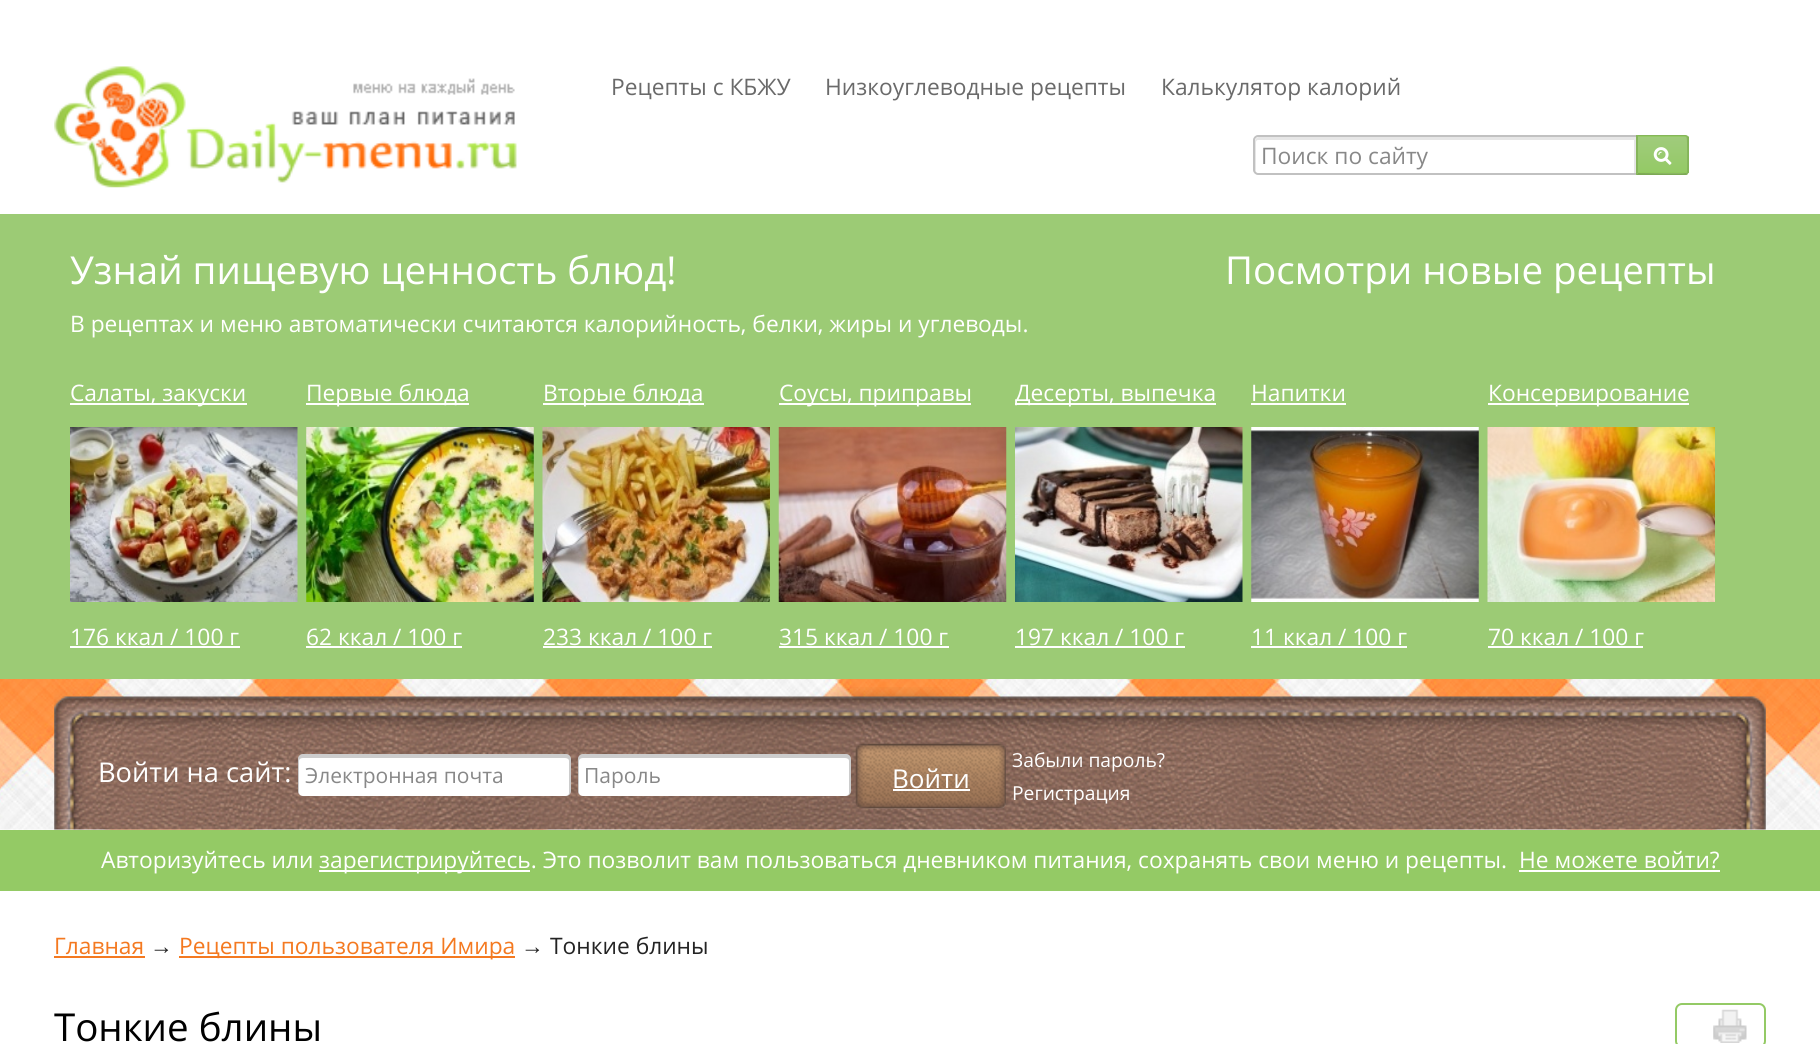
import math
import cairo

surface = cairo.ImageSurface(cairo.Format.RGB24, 1820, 1044)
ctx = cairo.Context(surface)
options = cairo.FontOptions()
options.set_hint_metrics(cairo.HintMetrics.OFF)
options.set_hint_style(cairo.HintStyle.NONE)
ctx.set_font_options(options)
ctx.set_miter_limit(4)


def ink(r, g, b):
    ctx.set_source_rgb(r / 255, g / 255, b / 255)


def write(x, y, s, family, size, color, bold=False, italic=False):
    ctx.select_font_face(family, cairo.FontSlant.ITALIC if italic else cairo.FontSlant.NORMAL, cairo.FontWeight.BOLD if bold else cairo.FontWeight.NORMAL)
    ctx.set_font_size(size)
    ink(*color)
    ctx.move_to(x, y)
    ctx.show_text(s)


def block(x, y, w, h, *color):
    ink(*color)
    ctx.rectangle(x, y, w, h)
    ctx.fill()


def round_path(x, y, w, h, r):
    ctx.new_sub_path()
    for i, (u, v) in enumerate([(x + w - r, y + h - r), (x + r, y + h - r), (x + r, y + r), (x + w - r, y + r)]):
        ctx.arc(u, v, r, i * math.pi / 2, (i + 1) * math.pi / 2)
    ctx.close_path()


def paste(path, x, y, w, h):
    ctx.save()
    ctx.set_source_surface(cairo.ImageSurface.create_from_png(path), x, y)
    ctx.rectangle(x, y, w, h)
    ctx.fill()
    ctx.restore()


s1 = dict(family="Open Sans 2", size=22.75, color=(106, 106, 106))
s2 = dict(family="Open Sans 2", size=22.75, color=(136, 136, 136))
s3 = dict(family="Open Sans", size=38.5, color=(255, 255, 255))
s4 = dict(family="Open Sans 2", size=22.75, color=(255, 255, 255))
s5 = dict(family="Open Sans", size=27.25, color=(255, 255, 255))
s6 = dict(family="Open Sans 2", size=21, color=(136, 136, 136))
s7 = dict(family="Open Sans 2", size=26, color=(255, 255, 255))
s8 = dict(family="Open Sans 2", size=19.25, color=(255, 255, 255))
s9 = dict(family="Open Sans 2", size=22.75, color=(244, 121, 32))
s10 = dict(family="Liberation Sans", size=22.75, color=(35, 35, 35))
s11 = dict(family="Open Sans 2", size=22.75, color=(35, 35, 35))
s12 = dict(family="Open Sans", size=38.5, color=(0, 0, 0))

ink(255, 255, 255)
ctx.paint()
paste("pic1.png", 54, 66, 463, 122)
write(611, 95, "Рецепты с КБЖУ", **s1)
write(825, 95, "Низкоуглеводные рецепты", **s1)
write(1161, 95, "Калькулятор калорий", **s1)
ink(230, 230, 230)
ctx.new_path()
ctx.move_to(1258, 140)
ctx.line_to(1634, 140)
ctx.line_to(1634, 173)
ctx.line_to(1636, 173)
ctx.line_to(1636, 137)
ctx.line_to(1259, 137)
ctx.curve_to(1257, 137, 1255, 139, 1255, 141)
ctx.line_to(1255, 169)
ctx.curve_to(1255, 170, 1255, 171, 1256, 172)
ctx.line_to(1256, 142)
ctx.curve_to(1256, 141, 1257, 140, 1258, 140)
ctx.close_path()
ctx.fill()
ctx.new_path()
ctx.move_to(1258, 136)
ctx.line_to(1637, 136)
ctx.line_to(1637, 174)
ctx.line_to(1258, 174)
ctx.curve_to(1256, 174, 1254, 172, 1254, 170)
ctx.line_to(1254, 140)
ctx.curve_to(1254, 138, 1256, 136, 1258, 136)
ctx.close_path()
ink(193, 193, 193)
ctx.stroke()
write(1261, 164, "Поиск по сайту", **s2)
ctx.save()
ctx.new_path()
ctx.move_to(1636, 135)
ctx.line_to(1685, 135)
ctx.curve_to(1687, 135, 1689, 137, 1689, 139)
ctx.line_to(1689, 171)
ctx.curve_to(1689, 173, 1687, 175, 1685, 175)
ctx.line_to(1636, 175)
ctx.close_path()
ctx.clip()
gradient = cairo.LinearGradient(1663, 100, 1663, 137)
gradient.add_color_stop_rgba(0, 0.627, 0.796, 0.486, 1)
gradient.add_color_stop_rgba(1, 0.58, 0.792, 0.396, 1)
ctx.set_source(gradient)
ctx.rectangle(1636, 135, 53, 2)
ctx.fill()
ctx.restore()
gradient = cairo.LinearGradient(1663, 137, 1663, 173)
gradient.add_color_stop_rgba(0, 0.627, 0.796, 0.486, 1)
gradient.add_color_stop_rgba(1, 0.58, 0.792, 0.396, 1)
ctx.set_source(gradient)
ctx.rectangle(1638, 137, 51, 36)
ctx.fill()
ctx.save()
ctx.new_path()
ctx.move_to(1636, 135)
ctx.line_to(1685, 135)
ctx.curve_to(1687, 135, 1689, 137, 1689, 139)
ctx.line_to(1689, 171)
ctx.curve_to(1689, 173, 1687, 175, 1685, 175)
ctx.line_to(1636, 175)
ctx.close_path()
ctx.clip()
gradient = cairo.LinearGradient(1663, 173, 1663, 210)
gradient.add_color_stop_rgba(0, 0.627, 0.796, 0.486, 1)
gradient.add_color_stop_rgba(1, 0.58, 0.792, 0.396, 1)
ctx.set_source(gradient)
ctx.rectangle(1636, 173, 53, 2)
ctx.fill()
ctx.restore()
ink(145, 202, 93)
ctx.new_path()
ctx.move_to(1638, 172)
ctx.line_to(1638, 173)
ctx.line_to(1685, 173)
ctx.curve_to(1686, 173, 1687, 172, 1687, 171)
ctx.line_to(1687, 170)
ctx.curve_to(1687, 171, 1686, 172, 1685, 172)
ctx.close_path()
ctx.fill()
ink(133, 181, 90)
ctx.new_path()
ctx.move_to(1638, 136)
ctx.line_to(1685, 136)
ctx.line_to(1687, 137)
ctx.line_to(1688, 136)
ctx.line_to(1685, 135)
ctx.line_to(1636, 135)
ctx.close_path()
ctx.fill()
ctx.new_path()
ctx.move_to(1688, 136)
ctx.line_to(1689, 137)
ctx.line_to(1689, 172.5)
ctx.line_to(1687.5, 174)
ctx.line_to(1686.5, 172.5)
ctx.line_to(1687, 172)
ctx.curve_to(1687, 168, 1687.5, 138.5, 1686.5, 137)
ctx.close_path()
ctx.fill()
ink(124, 169, 84)
ctx.new_path()
ctx.move_to(1636, 175)
ctx.line_to(1685, 175)
ctx.curve_to(1686, 175, 1687, 175, 1688, 174)
ctx.line_to(1686, 173)
ctx.curve_to(1684, 174, 1644, 173, 1638, 173)
ctx.close_path()
ctx.fill()
ink(133, 181, 90)
ctx.new_path()
ctx.move_to(1636, 175)
ctx.line_to(1638, 173)
ctx.line_to(1638, 136)
ctx.line_to(1636, 135)
ctx.close_path()
ctx.fill()
paste("pic2.png", 1653, 147, 19, 18)
block(0, 214, 1820, 465, 156, 203, 117)
write(70, 284, "Узнай пищевую ценность блюд!", **s3)
write(1225, 284, "Посмотри новые рецепты", **s3)
write(70, 332, "В рецептах и меню автоматически считаются калорийность, белки, жиры и углеводы.", **s4)
block(70, 403, 177, 2, 255, 255, 255)
write(70, 401, "Салаты, закуски", **s4)
paste("pic3.png", 70, 427, 228, 175)
write(70, 645, "176 ккал / 100 г", **s4)
block(70, 646, 170, 2, 255, 255, 255)
block(306, 403, 163, 2, 255, 255, 255)
write(306, 401, "Первые блюда", **s4)
paste("pic4.png", 306, 427, 228, 175)
write(306, 645, "62 ккал / 100 г", **s4)
block(306, 646, 156, 2, 255, 255, 255)
block(543, 403, 161, 2, 255, 255, 255)
write(543, 401, "Вторые блюда", **s4)
paste("pic5.png", 542, 427, 228, 175)
write(543, 645, "233 ккал / 100 г", **s4)
block(543, 646, 169, 2, 255, 255, 255)
block(779, 403, 192, 2, 255, 255, 255)
write(779, 401, "Соусы, приправы", **s4)
paste("pic6.png", 778, 427, 229, 175)
write(779, 645, "315 ккал / 100 г", **s4)
block(779, 646, 170, 2, 255, 255, 255)
block(1015, 403, 201, 2, 255, 255, 255)
write(1015, 401, "Десерты, выпечка", **s4)
paste("pic7.png", 1015, 427, 228, 175)
write(1015, 645, "197 ккал / 100 г", **s4)
block(1015, 646, 170, 2, 255, 255, 255)
write(1251, 401, "Напитки", **s4)
block(1251, 403, 95, 2, 255, 255, 255)
paste("pic8.png", 1251, 427, 228, 175)
write(1251, 645, "11 ккал / 100 г", **s4)
block(1251, 646, 156, 2, 255, 255, 255)
block(1488, 403, 201, 2, 255, 255, 255)
write(1488, 401, "Консервирование", **s4)
paste("pic9.png", 1487, 427, 228, 175)
write(1488, 645, "70 ккал / 100 г", **s4)
block(1488, 646, 155, 2, 255, 255, 255)
paste("pic10.png", 0, 679, 1820, 151)
paste("pic11.png", 54, 687, 1712, 143)
write(98, 782, "Войти на сайт:", **s5)
round_path(298, 754, 273, 42, 5)
ctx.fill()
ctx.set_source_rgba(0, 0, 0, 0.2)
ctx.new_path()
ctx.move_to(303, 758)
ctx.line_to(565, 758)
ctx.curve_to(567, 758, 569, 759, 569, 761)
ctx.line_to(569, 793)
ctx.curve_to(569, 795, 567, 796, 565, 796)
ctx.line_to(566, 796)
ctx.curve_to(569, 796, 571, 794, 571, 791)
ctx.line_to(571, 759)
ctx.curve_to(571, 756, 569, 754, 566, 754)
ctx.line_to(303, 754)
ctx.curve_to(300, 754, 298, 756, 298, 759)
ctx.line_to(298, 791)
ctx.curve_to(298, 792, 299, 794, 300, 795)
ctx.line_to(299, 793)
ctx.line_to(299, 761)
ctx.curve_to(299, 759, 301, 758, 303, 758)
ctx.close_path()
ctx.fill()
write(305, 783, "Электронная почта", **s6)
ink(255, 255, 255)
round_path(578, 754, 273, 42, 5)
ctx.fill()
ctx.set_source_rgba(0, 0, 0, 0.2)
ctx.new_path()
ctx.move_to(583, 758)
ctx.line_to(845, 758)
ctx.curve_to(847, 758, 849, 759, 849, 761)
ctx.line_to(849, 793)
ctx.curve_to(849, 795, 847, 796, 845, 796)
ctx.line_to(846, 796)
ctx.curve_to(849, 796, 851, 794, 851, 791)
ctx.line_to(851, 759)
ctx.curve_to(851, 756, 849, 754, 846, 754)
ctx.line_to(583, 754)
ctx.curve_to(580, 754, 578, 756, 578, 759)
ctx.line_to(578, 791)
ctx.curve_to(578, 792, 579, 794, 580, 795)
ctx.line_to(579, 793)
ctx.line_to(579, 761)
ctx.curve_to(579, 759, 581, 758, 583, 758)
ctx.close_path()
ctx.fill()
write(584, 783, "Пароль", **s6)
paste("pic12.png", 855, 743, 151, 66)
write(892, 788, "Войти", **s7)
block(893, 789, 77, 2, 255, 255, 255)
write(1012, 767, "Забыли пароль?", **s8)
write(1012, 800, "Регистрация", **s8)
block(0, 830, 1820, 61, 148, 202, 101)
write(101, 868, "Авторизуйтесь или", **s4)
block(319, 870, 211, 2, 255, 255, 255)
write(319, 868, "зарегистрируйтесь. Это позволит вам пользоваться дневником питания, сохранять свои меню и рецепты.", **s4)
write(1519, 868, "Не можете войти?", **s4)
block(1519, 870, 201, 2, 255, 255, 255)
write(54, 954, "Главная", **s9)
block(54, 956, 91, 2, 244, 121, 32)
write(150, 954, "→", **s10)
block(179, 956, 336, 2, 244, 121, 32)
write(179, 954, "Рецепты пользователя Имира", **s9)
write(521, 954, "→", **s10)
write(550, 954, "Тонкие блины", **s11)
write(54, 1041, "Тонкие блины", **s12)
round_path(1676, 1004, 89, 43, 6)
ink(148, 202, 101)
ctx.stroke()
paste("pic13.png", 1713, 1009, 34, 34)
surface.write_to_png("screenshot.png")
